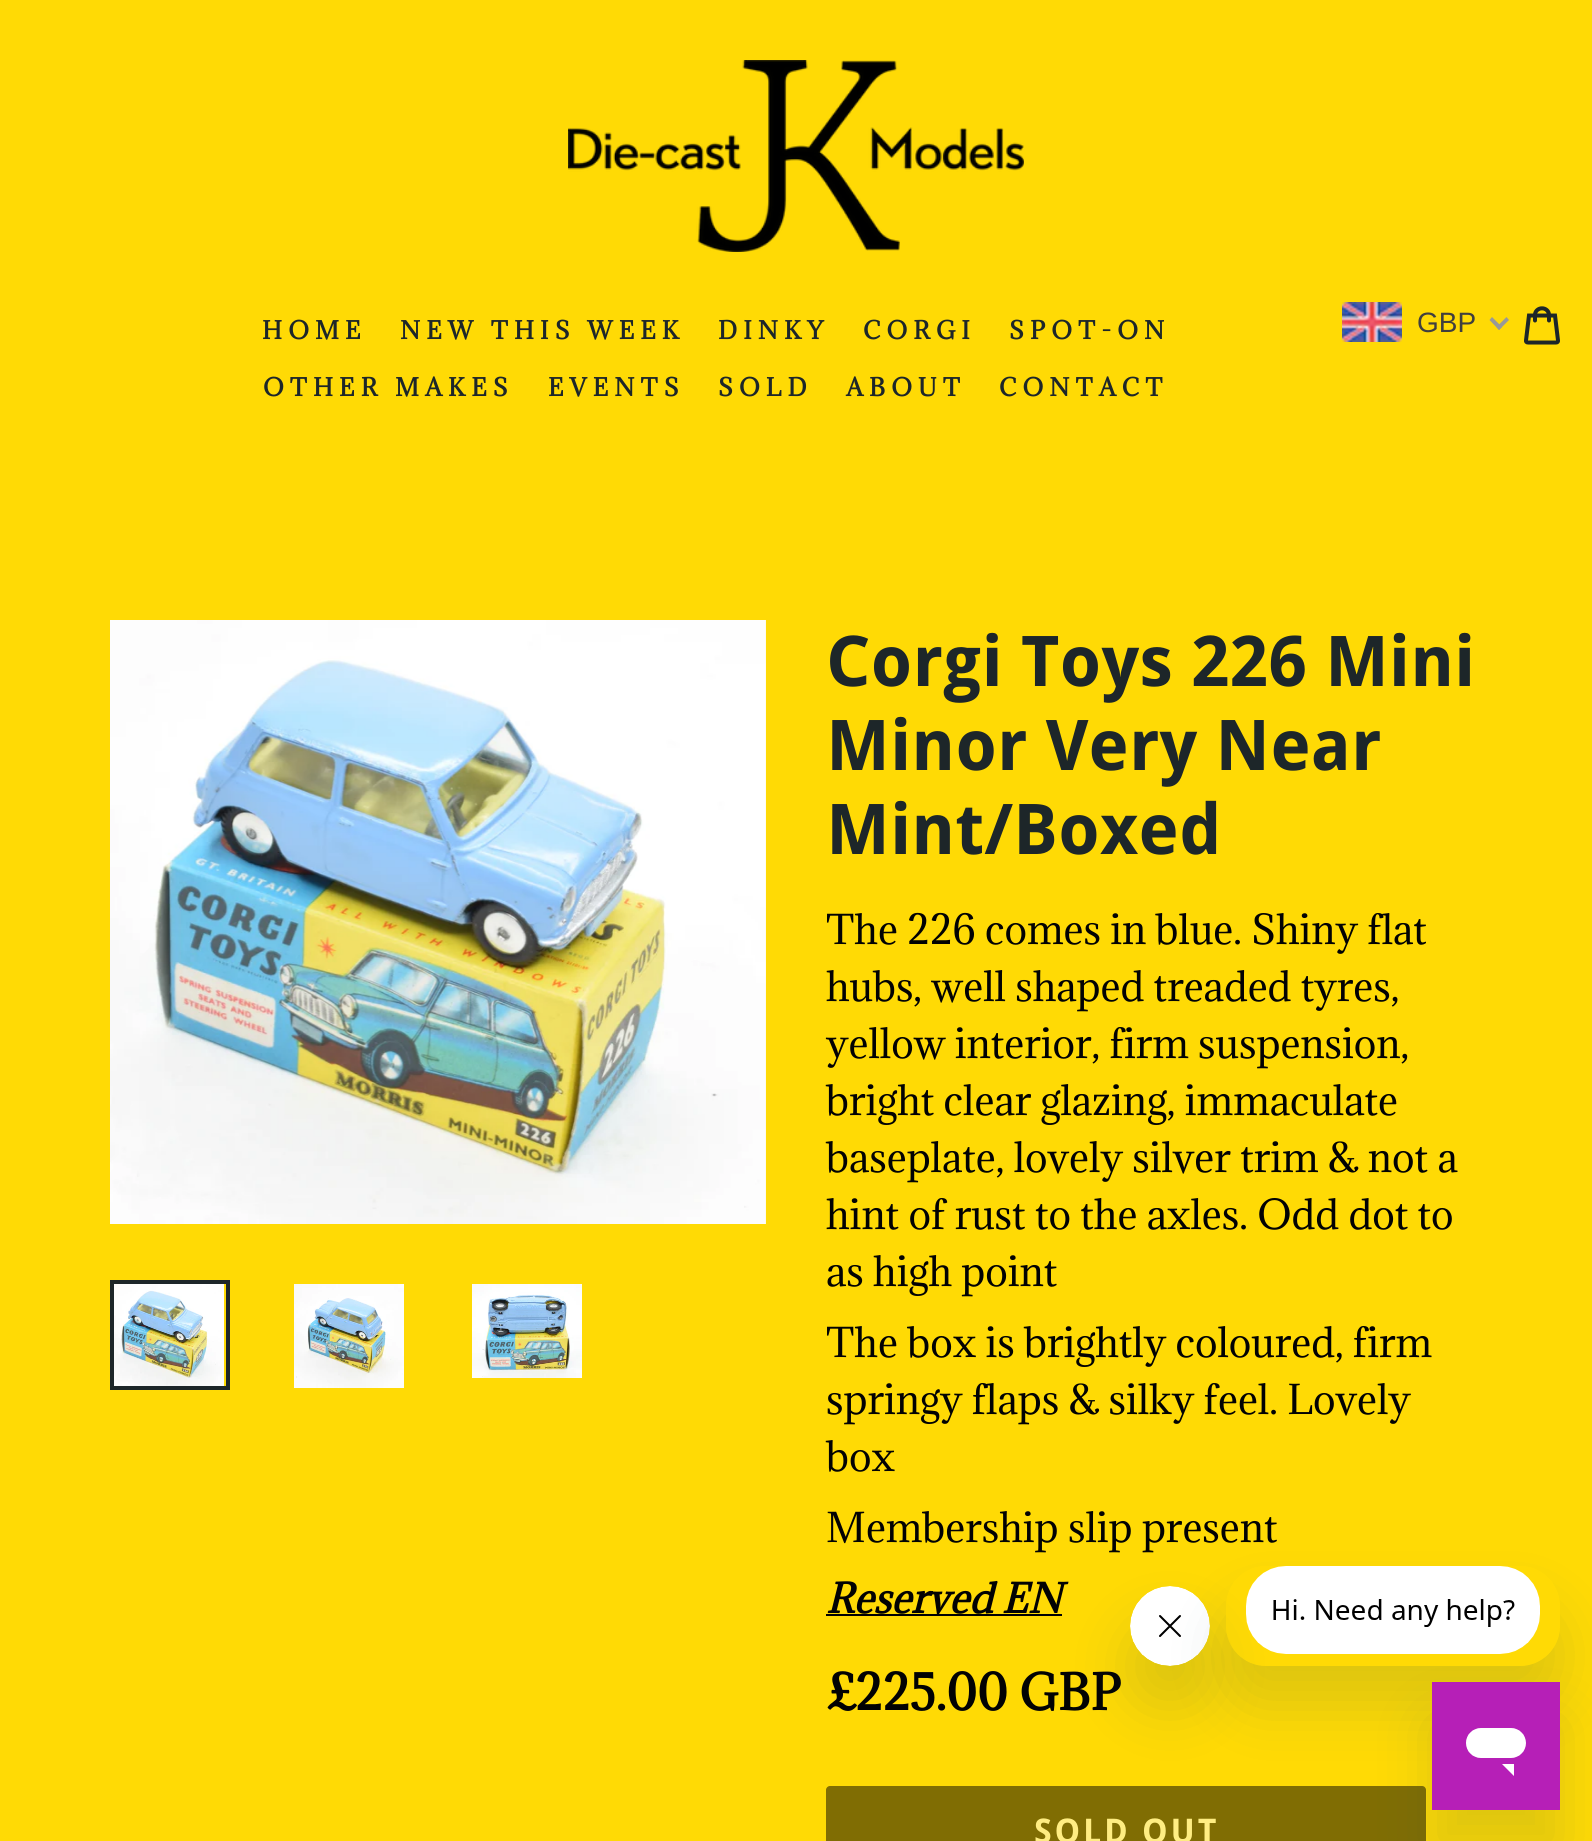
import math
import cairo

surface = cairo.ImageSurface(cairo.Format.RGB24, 1592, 1841)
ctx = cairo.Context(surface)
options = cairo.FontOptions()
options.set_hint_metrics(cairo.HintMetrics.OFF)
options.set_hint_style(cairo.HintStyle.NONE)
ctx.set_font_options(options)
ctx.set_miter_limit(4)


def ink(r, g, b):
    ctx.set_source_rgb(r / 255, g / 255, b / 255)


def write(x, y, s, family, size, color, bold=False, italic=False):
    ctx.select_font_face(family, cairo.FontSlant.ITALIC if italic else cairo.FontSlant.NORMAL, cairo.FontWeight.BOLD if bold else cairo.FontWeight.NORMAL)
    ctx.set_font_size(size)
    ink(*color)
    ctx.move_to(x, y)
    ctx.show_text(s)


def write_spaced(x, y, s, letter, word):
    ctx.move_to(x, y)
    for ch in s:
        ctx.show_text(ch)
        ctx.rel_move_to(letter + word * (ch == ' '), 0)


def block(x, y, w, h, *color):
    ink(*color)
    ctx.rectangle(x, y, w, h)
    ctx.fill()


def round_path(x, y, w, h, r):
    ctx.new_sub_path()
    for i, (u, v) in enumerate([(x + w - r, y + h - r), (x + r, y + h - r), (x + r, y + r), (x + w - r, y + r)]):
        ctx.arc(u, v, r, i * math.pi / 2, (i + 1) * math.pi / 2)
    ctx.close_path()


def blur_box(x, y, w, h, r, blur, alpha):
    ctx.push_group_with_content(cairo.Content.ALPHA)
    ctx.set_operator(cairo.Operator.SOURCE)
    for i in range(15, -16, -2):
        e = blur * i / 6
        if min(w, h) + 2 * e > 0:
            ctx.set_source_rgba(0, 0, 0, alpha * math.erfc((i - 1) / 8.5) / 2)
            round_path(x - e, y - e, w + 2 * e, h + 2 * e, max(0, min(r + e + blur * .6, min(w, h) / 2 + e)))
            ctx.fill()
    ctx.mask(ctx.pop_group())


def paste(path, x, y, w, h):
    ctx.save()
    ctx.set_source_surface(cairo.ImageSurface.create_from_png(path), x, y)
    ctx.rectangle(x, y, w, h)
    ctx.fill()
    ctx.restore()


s1 = dict(family="Liberation Sans", size=28, color=(64, 63, 63))
s2 = dict(family="Droid Sans", size=70, color=(29, 38, 41), bold=True)
s3 = dict(family="Adamina", size=38, color=(2, 2, 3))
s4 = dict(family="Adamina", size=38, color=(2, 2, 3), bold=True, italic=True)
s5 = dict(family="Adamina", size=46, color=(2, 2, 3), bold=True)

ink(255, 218, 5)
ctx.paint()
paste("pic1.png", 568, 60, 456, 192)
ctx.select_font_face("Adamina", cairo.FontSlant.NORMAL, cairo.FontWeight.BOLD)
ctx.set_font_size(23)
ink(29, 38, 41)
write_spaced(262, 339, "HOME", 6, 0)
write_spaced(400, 339, "NEW THIS WEEK", 6, 0)
write_spaced(718, 339, "DINKY", 6, 0)
write_spaced(863, 339, "CORGI", 6, 0)
write_spaced(1009, 339, "SPOT-ON", 6, 0)
write_spaced(263, 396, "OTHER MAKES", 6, 0)
write_spaced(548, 396, "EVENTS", 6, 0)
write_spaced(718, 396, "SOLD", 6, 0)
write_spaced(846, 396, "ABOUT", 6, 0)
write_spaced(999, 396, "CONTACT", 6, 0)
paste("pic2.png", 1342, 302, 60, 40)
write(1417, 332, "GBP", **s1)
ink(153, 153, 153)
ctx.new_path()
ctx.move_to(1506.5, 317)
ctx.line_to(1509, 320)
ctx.line_to(1499, 330)
ctx.line_to(1496.5, 327)
ctx.close_path()
ctx.fill()
ctx.new_path()
ctx.move_to(1492, 317)
ctx.line_to(1502, 327)
ctx.line_to(1499, 330)
ctx.line_to(1489.5, 320)
ctx.close_path()
ctx.fill()
paste("pic3.png", 1524, 306, 36, 39)
paste("pic4.png", 110, 620, 656, 604)
ctx.rectangle(112, 1282, 116, 106)
ink(29, 38, 41)
ctx.set_line_width(4)
ctx.stroke()
paste("pic5.png", 114, 1284, 110, 102)
paste("pic6.png", 294, 1284, 110, 104)
paste("pic7.png", 472, 1284, 110, 94)
write(826, 686, "Corgi Toys 226 Mini", **s2)
write(826, 770, "Minor Very Near", **s2)
write(826, 854, "Mint/Boxed", **s2)
write(826, 944, "The 226 comes in blue. Shiny flat", **s3)
write(826, 1001, "hubs, well shaped treaded tyres,", **s3)
write(826, 1058, "yellow interior, firm suspension,", **s3)
write(826, 1115, "bright clear glazing, immaculate", **s3)
write(826, 1172, "baseplate, lovely silver trim & not a", **s3)
write(826, 1229, "hint of rust to the axles. Odd dot to", **s3)
write(826, 1286, "as high point", **s3)
write(826, 1357, "The box is brightly coloured, firm", **s3)
write(826, 1414, "springy flaps & silky feel. Lovely", **s3)
write(826, 1471, "box", **s3)
write(826, 1542, "Membership slip present", **s3)
block(826, 1614, 236, 2, 2, 2, 3)
write(826, 1613, "Reserved EN", **s4)
write(826, 1710, "£225.00 GBP", **s5)
ink(128, 109, 3)
round_path(826, 1786, 600, 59, 4)
ctx.fill()
ctx.select_font_face("Droid Sans", cairo.FontSlant.NORMAL, cairo.FontWeight.BOLD)
ctx.set_font_size(34)
ink(255, 237, 130)
write_spaced(1034, 1843, "SOLD OUT", 2.75, 0)
ink(23, 73, 77)
blur_box(1130, 1626, 80, 80, 40, 30, 0.15)
paste("pic9.png", 1130, 1586, 80, 80)
ctx.save()
ctx.set_fill_rule(cairo.FillRule.EVEN_ODD)
ctx.new_path()
ctx.move_to(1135, 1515)
ctx.line_to(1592, 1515)
ctx.line_to(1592, 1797)
ctx.line_to(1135, 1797)
ctx.close_path()
ctx.move_to(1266, 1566)
ctx.line_to(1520, 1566)
ctx.curve_to(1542, 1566, 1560, 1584, 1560, 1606)
ctx.line_to(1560, 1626)
ctx.curve_to(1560, 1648, 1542, 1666, 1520, 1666)
ctx.line_to(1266, 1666)
ctx.curve_to(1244, 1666, 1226, 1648, 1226, 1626)
ctx.line_to(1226, 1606)
ctx.curve_to(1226, 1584, 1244, 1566, 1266, 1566)
ctx.close_path()
ctx.clip()
blur_box(1226, 1606, 334, 100, 40, 30, 0.15)
ctx.restore()
paste("pic8.png", 1246, 1566, 294, 88)
blur_box(1432, 1722, 128, 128, 0, 30, 0.15)
paste("pic10.png", 1432, 1682, 128, 128)
surface.write_to_png("screenshot.png")
